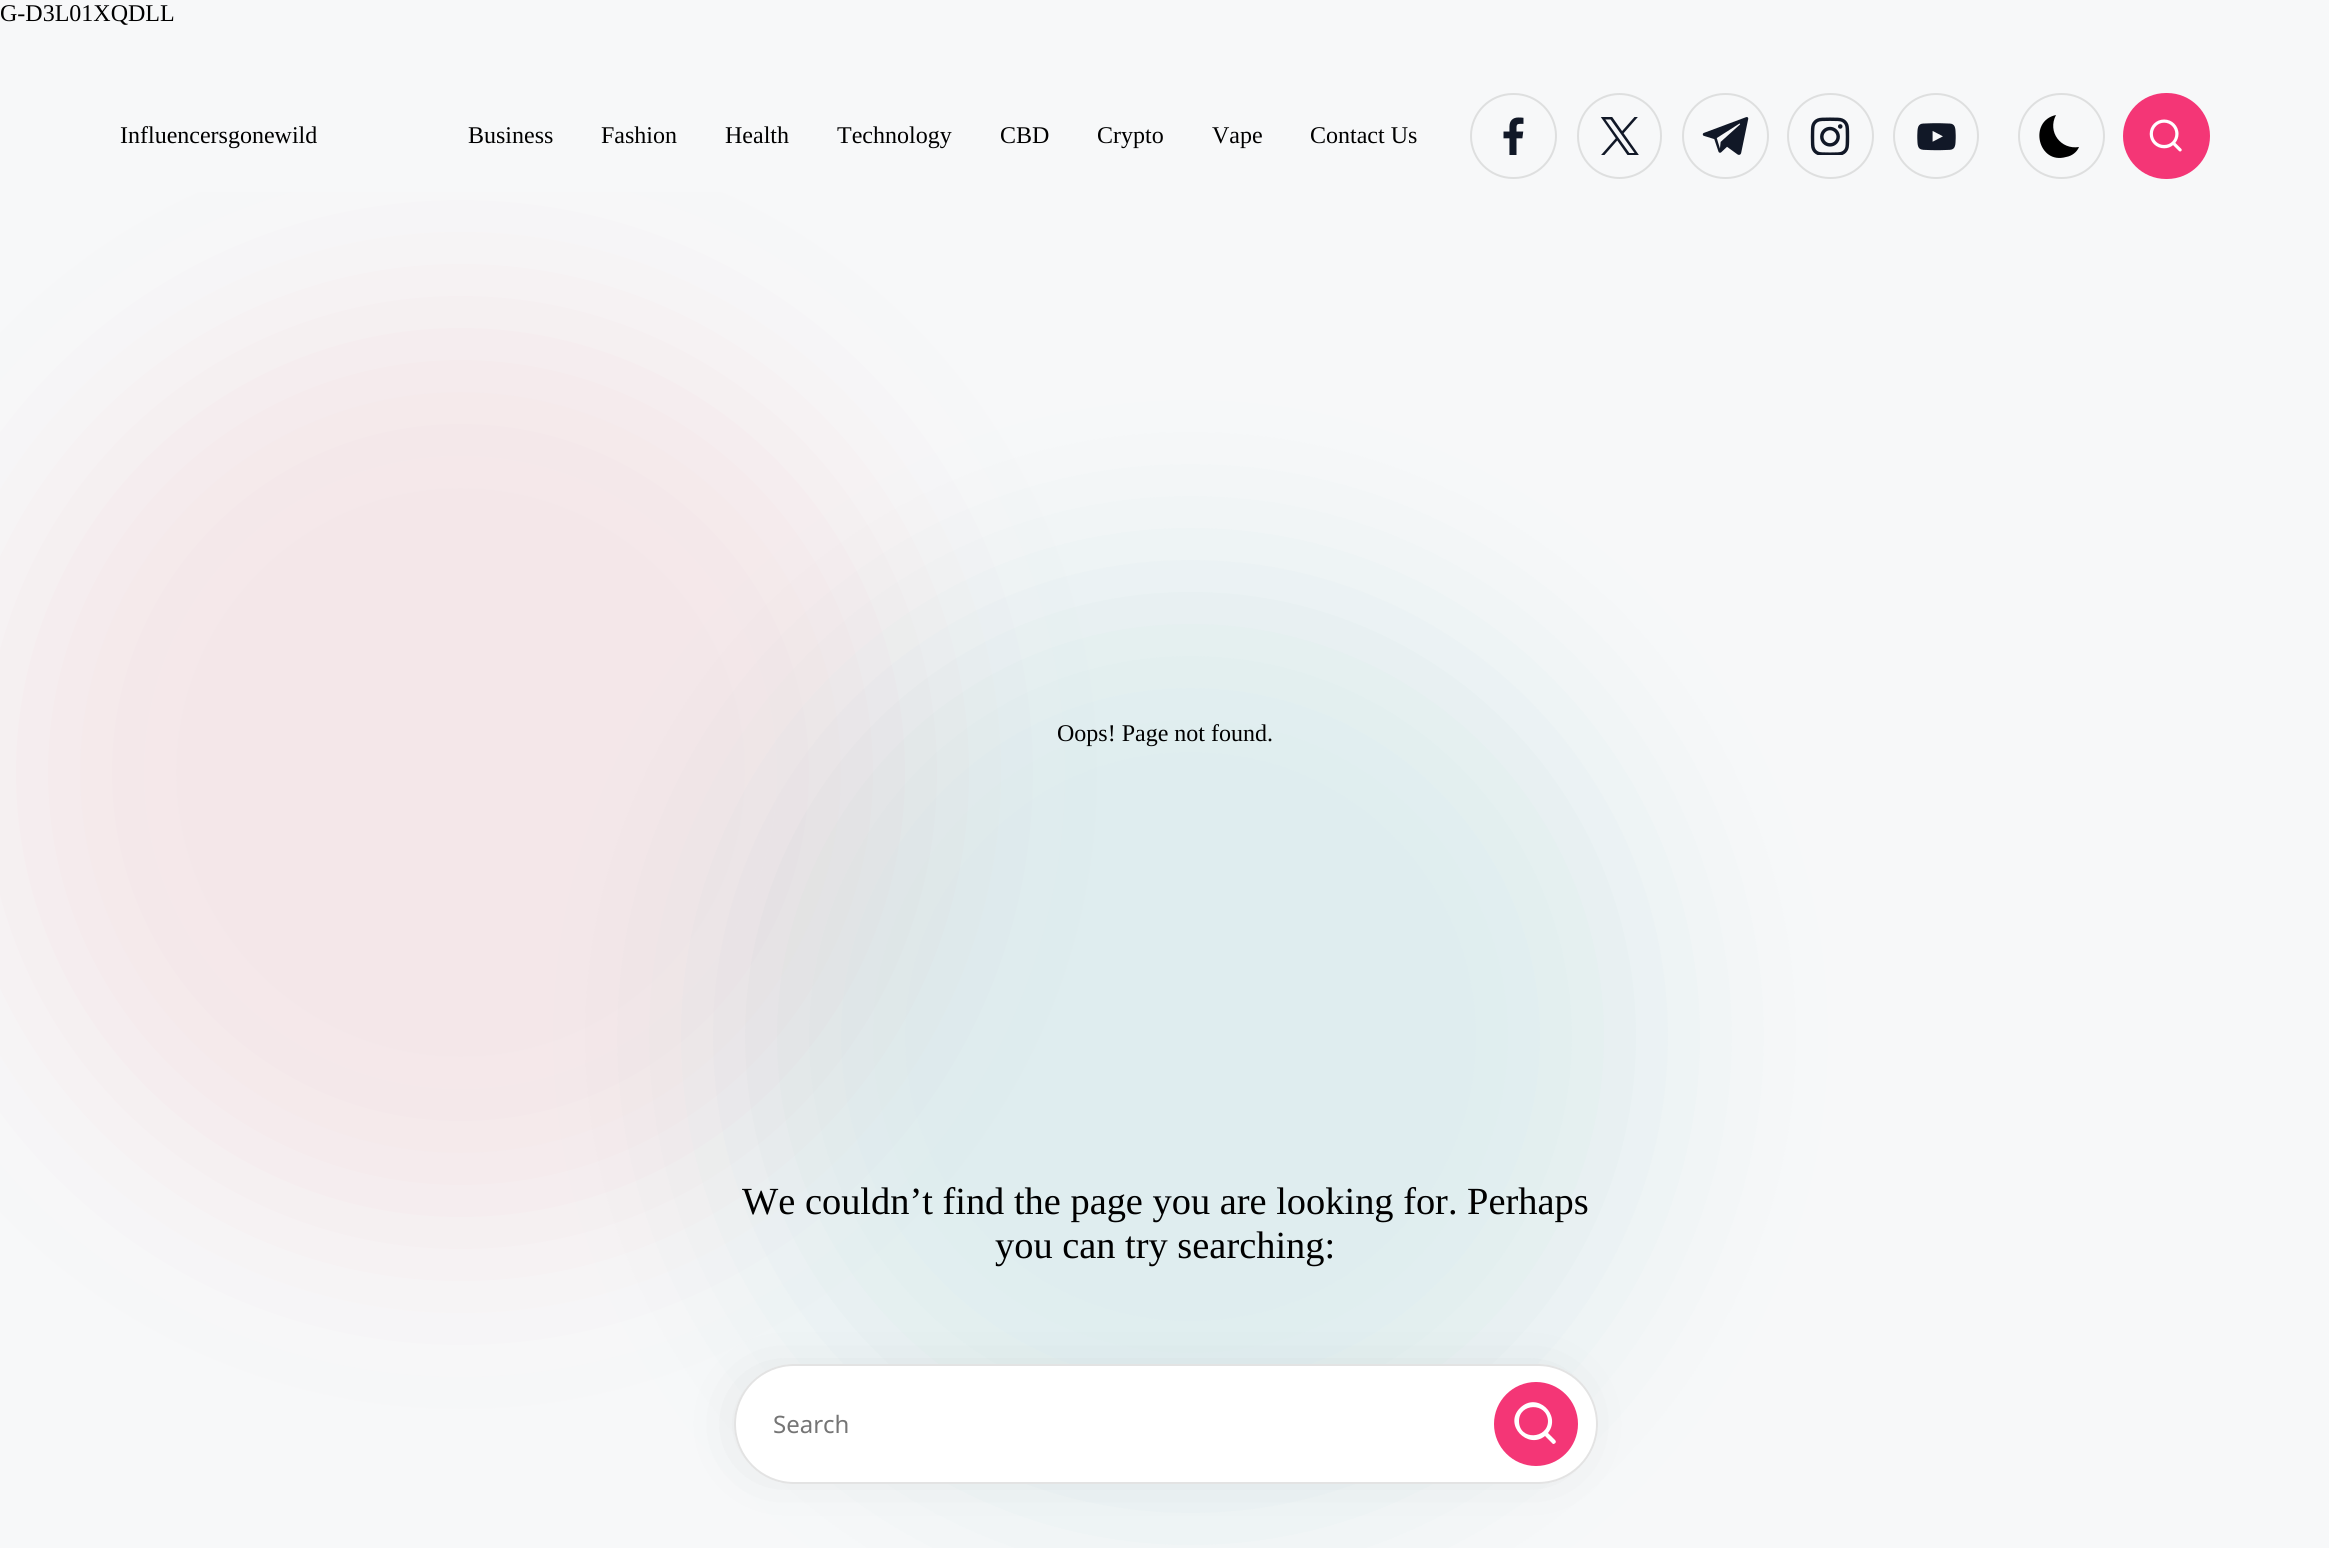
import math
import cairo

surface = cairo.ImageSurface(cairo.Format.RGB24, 2329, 1548)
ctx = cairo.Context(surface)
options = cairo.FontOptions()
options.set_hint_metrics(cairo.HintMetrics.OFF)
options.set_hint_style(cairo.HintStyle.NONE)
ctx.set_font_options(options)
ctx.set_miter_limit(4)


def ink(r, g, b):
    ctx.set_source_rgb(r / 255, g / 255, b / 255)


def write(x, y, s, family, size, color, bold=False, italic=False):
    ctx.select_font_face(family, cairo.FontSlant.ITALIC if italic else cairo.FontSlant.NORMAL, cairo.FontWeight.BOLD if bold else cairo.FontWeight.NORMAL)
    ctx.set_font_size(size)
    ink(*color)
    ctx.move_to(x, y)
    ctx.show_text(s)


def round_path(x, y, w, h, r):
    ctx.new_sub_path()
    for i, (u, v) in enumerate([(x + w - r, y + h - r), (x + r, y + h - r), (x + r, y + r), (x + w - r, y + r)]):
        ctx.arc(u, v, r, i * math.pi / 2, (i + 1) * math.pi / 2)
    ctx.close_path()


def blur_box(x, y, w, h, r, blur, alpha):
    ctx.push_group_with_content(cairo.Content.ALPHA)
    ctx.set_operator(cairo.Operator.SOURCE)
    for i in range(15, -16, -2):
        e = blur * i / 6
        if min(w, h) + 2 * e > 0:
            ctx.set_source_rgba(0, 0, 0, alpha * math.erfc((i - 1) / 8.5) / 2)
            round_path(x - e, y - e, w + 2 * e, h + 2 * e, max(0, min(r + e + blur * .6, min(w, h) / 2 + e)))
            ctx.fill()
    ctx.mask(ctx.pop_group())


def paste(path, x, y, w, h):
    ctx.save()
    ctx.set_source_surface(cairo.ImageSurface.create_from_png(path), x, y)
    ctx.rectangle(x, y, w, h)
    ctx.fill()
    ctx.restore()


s1 = dict(family="Liberation Serif", size=24, color=(0, 0, 0))
s2 = dict(family="Liberation Serif", size=38.4, color=(0, 0, 0))
s3 = dict(family="Noto Sans", size=24, color=(117, 117, 117))

ink(247, 248, 249)
ctx.paint()
ctx.save()
ctx.rectangle(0, 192, 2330, 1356)
ctx.clip()
ink(244, 231, 233)
blur_box(0, 312, 921, 921, 460.5, 96, 1)
ctx.restore()
write(0, 21, "G-D3L01XQDLL", **s1)
write(120, 143, "Influencersgonewild", **s1)
write(468, 143, "Business", **s1)
write(601, 143, "Fashion", **s1)
write(725, 143, "Health", **s1)
write(837, 143, "Technology", **s1)
write(1000, 143, "CBD", **s1)
write(1097, 143, "Crypto", **s1)
write(1212, 143, "Vape", **s1)
write(1310, 143, "Contact Us", **s1)
round_path(1471, 94, 85, 84, 42)
ink(222, 223, 223)
ctx.stroke()
paste("pic1.png", 1503, 117, 21, 38)
round_path(1578, 94, 83, 84, 41.5)
ctx.stroke()
paste("pic2.png", 1600, 117, 39, 38)
round_path(1683, 94, 85, 84, 42)
ctx.stroke()
paste("pic3.png", 1702, 117, 47, 38)
round_path(1788, 94, 85, 84, 42)
ctx.stroke()
paste("pic4.png", 1810, 117, 40, 38)
ctx.arc(1936, 136, 42, 0, 2 * math.pi)
ctx.stroke()
paste("pic5.png", 1917, 123, 39, 28)
round_path(2019, 94, 85, 84, 42)
ctx.stroke()
ink(0, 0, 0)
ctx.new_path()
ctx.move_to(2079, 147)
ctx.curve_to(2061, 150, 2047, 132, 2056, 115)
ctx.curve_to(2028, 121, 2038, 165, 2066, 157)
ctx.curve_to(2072, 156, 2077, 152, 2079, 147)
ctx.close_path()
ctx.fill()
ink(244, 54, 118)
round_path(2123, 93, 87, 86, 43)
ctx.fill()
paste("pic6.png", 2149, 119, 33, 33)
ink(4, 134, 139)
blur_box(729, 576, 923, 921, 460.5, 96, 0.1)
write(1057, 741, "Oops! Page not found.", **s1)
write(742, 1214, "We couldn’t find the page you are looking for. Perhaps", **s2)
write(995, 1258, "you can try searching:", **s2)
ink(0, 0, 0)
blur_box(764, 1403, 787, 42, 21, 38.5, 0.15)
ink(255, 255, 255)
round_path(734, 1364, 864, 120, 60)
ctx.fill()
round_path(735, 1365, 862, 118, 59)
ctx.set_source_rgba(0.725, 0.725, 0.725, 0.4)
ctx.stroke()
write(773, 1433, "Search", **s3)
ink(244, 54, 118)
ctx.new_path()
ctx.arc(1536, 1424, 42, 0, 2 * math.pi)
ctx.fill()
ink(255, 255, 255)
ctx.new_path()
ctx.move_to(1555, 1440)
ctx.line_to(1548, 1433)
ctx.curve_to(1562, 1415, 1537, 1391, 1520, 1408)
ctx.curve_to(1503, 1425, 1528, 1450, 1545, 1436)
ctx.line_to(1553, 1444)
ctx.curve_to(1555, 1444, 1557, 1442, 1555, 1440)
ctx.close_path()
ctx.move_to(1519, 1421)
ctx.curve_to(1519, 1403, 1547, 1402, 1548, 1421)
ctx.curve_to(1548, 1439, 1519, 1441, 1519, 1421)
ctx.close_path()
ctx.fill()
surface.write_to_png("screenshot.png")
